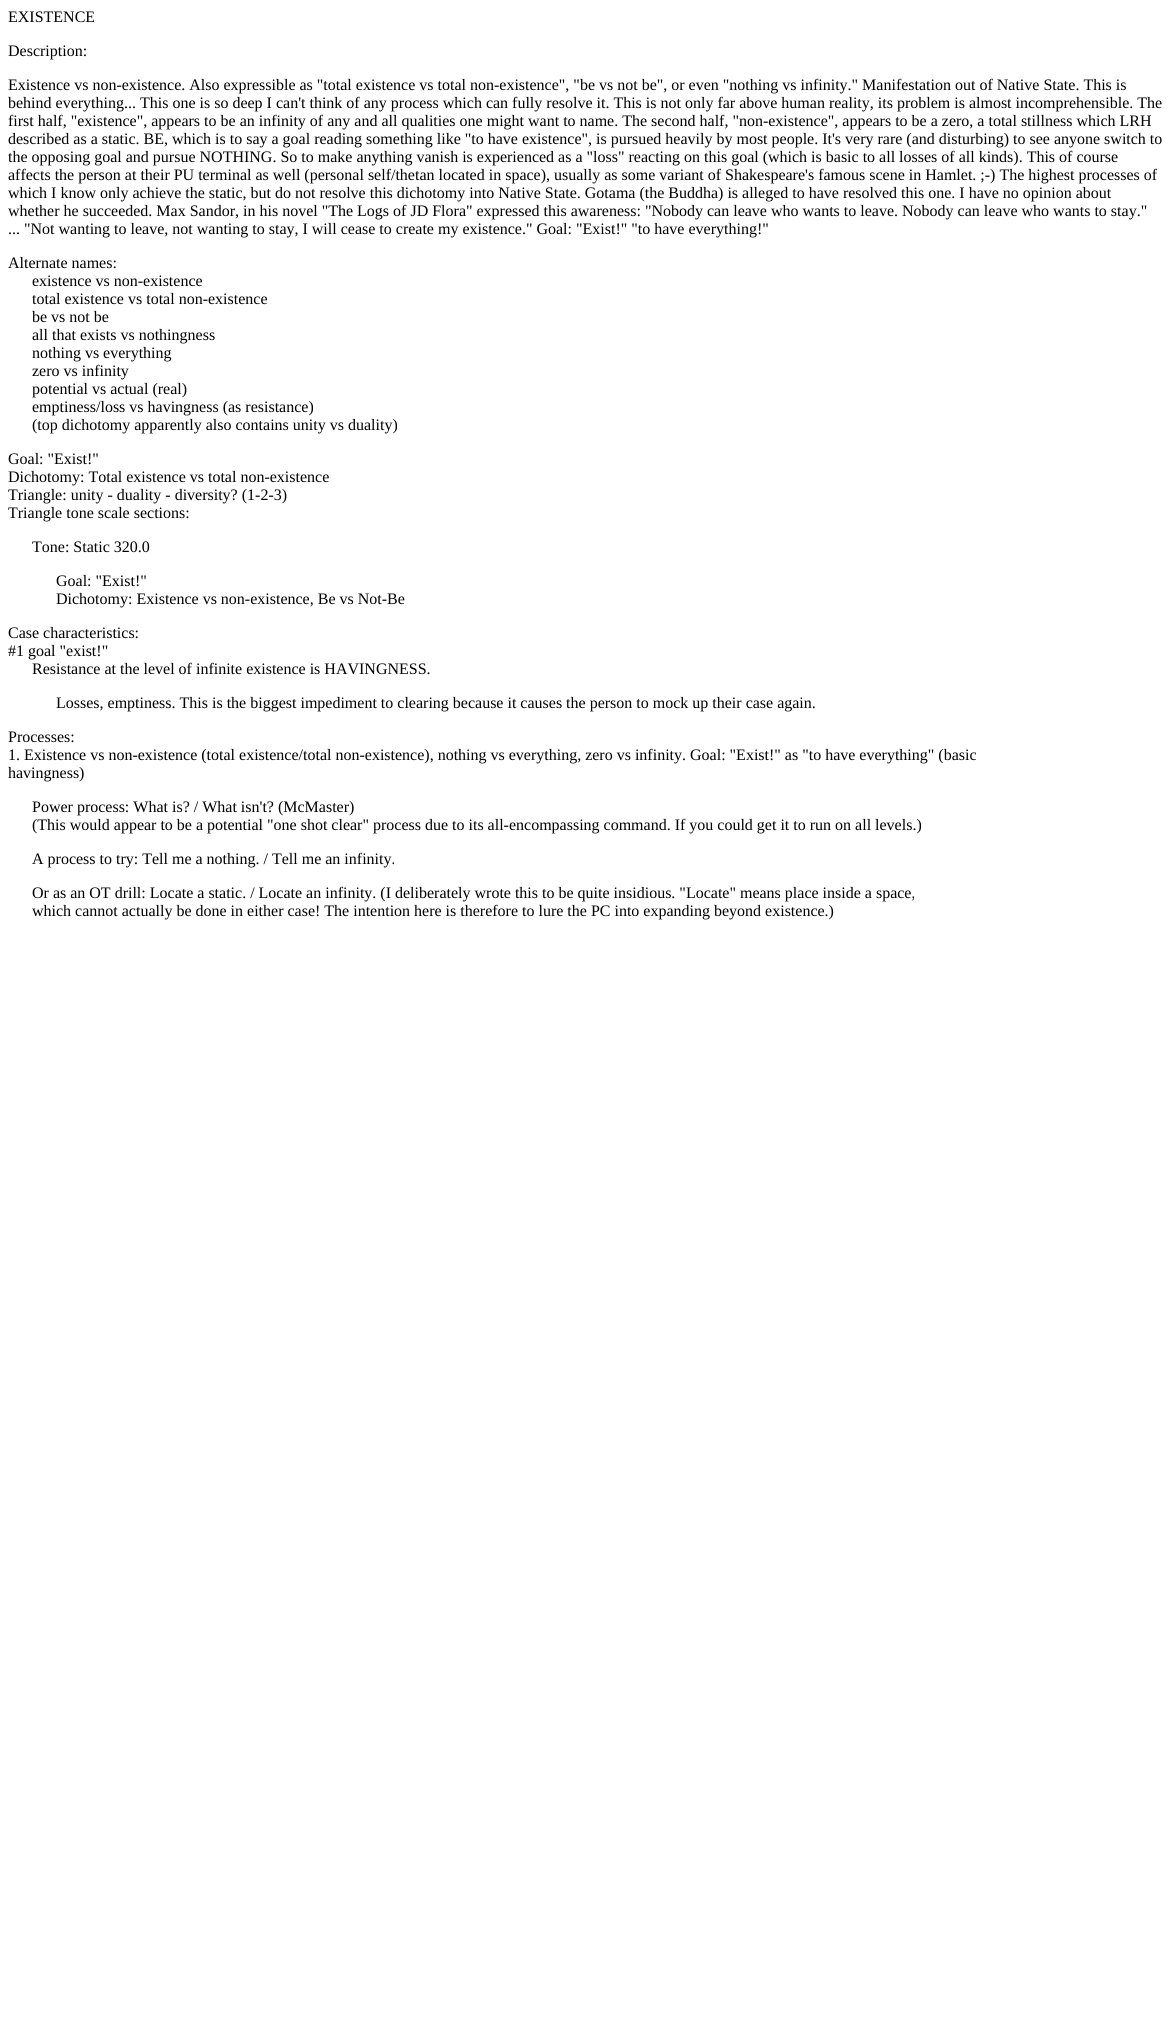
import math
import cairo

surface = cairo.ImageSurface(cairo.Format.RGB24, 1171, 2024)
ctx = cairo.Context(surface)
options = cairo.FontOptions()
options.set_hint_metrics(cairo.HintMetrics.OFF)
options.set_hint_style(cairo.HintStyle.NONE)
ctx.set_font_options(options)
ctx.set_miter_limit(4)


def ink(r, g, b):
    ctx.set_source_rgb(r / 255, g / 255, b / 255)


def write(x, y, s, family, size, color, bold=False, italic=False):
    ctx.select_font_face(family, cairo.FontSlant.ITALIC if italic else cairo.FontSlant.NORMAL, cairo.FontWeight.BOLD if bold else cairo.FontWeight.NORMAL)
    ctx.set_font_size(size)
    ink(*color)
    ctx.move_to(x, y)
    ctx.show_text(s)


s1 = dict(family="Liberation Serif", size=16, color=(0, 0, 0))

ink(255, 255, 255)
ctx.paint()
write(8, 22, "EXISTENCE", **s1)
write(8, 56, "Description:", **s1)
write(8, 90, "Existence vs non-existence. Also expressible as \"total existence vs total non-existence\", \"be vs not be\", or even \"nothing vs infinity.\" Manifestation out of Native State. This is", **s1)
write(8, 108, "behind everything... This one is so deep I can't think of any process which can fully resolve it. This is not only far above human reality, its problem is almost incomprehensible. The", **s1)
write(8, 126, "first half, \"existence\", appears to be an infinity of any and all qualities one might want to name. The second half, \"non-existence\", appears to be a zero, a total stillness which LRH", **s1)
write(8, 144, "described as a static. BE, which is to say a goal reading something like \"to have existence\", is pursued heavily by most people. It's very rare (and disturbing) to see anyone switch to", **s1)
write(8, 162, "the opposing goal and pursue NOTHING. So to make anything vanish is experienced as a \"loss\" reacting on this goal (which is basic to all losses of all kinds). This of course", **s1)
write(8, 180, "affects the person at their PU terminal as well (personal self/thetan located in space), usually as some variant of Shakespeare's famous scene in Hamlet. ;-) The highest processes of", **s1)
write(8, 198, "which I know only achieve the static, but do not resolve this dichotomy into Native State. Gotama (the Buddha) is alleged to have resolved this one. I have no opinion about", **s1)
write(8, 216, "whether he succeeded. Max Sandor, in his novel \"The Logs of JD Flora\" expressed this awareness: \"Nobody can leave who wants to leave. Nobody can leave who wants to stay.\"", **s1)
write(8, 234, "... \"Not wanting to leave, not wanting to stay, I will cease to create my existence.\" Goal: \"Exist!\" \"to have everything!\"", **s1)
write(8, 268, "Alternate names:", **s1)
write(32, 286, "existence vs non-existence", **s1)
write(32, 304, "total existence vs total non-existence", **s1)
write(32, 322, "be vs not be", **s1)
write(32, 340, "all that exists vs nothingness", **s1)
write(32, 358, "nothing vs everything", **s1)
write(32, 376, "zero vs infinity", **s1)
write(32, 394, "potential vs actual (real)", **s1)
write(32, 412, "emptiness/loss vs havingness (as resistance)", **s1)
write(32, 430, "(top dichotomy apparently also contains unity vs duality)", **s1)
write(8, 464, "Goal: \"Exist!\"", **s1)
write(8, 482, "Dichotomy: Total existence vs total non-existence", **s1)
write(8, 500, "Triangle: unity - duality - diversity? (1-2-3)", **s1)
write(8, 518, "Triangle tone scale sections:", **s1)
write(32, 552, "Tone: Static 320.0", **s1)
write(56, 586, "Goal: \"Exist!\"", **s1)
write(56, 604, "Dichotomy: Existence vs non-existence, Be vs Not-Be", **s1)
write(8, 638, "Case characteristics:", **s1)
write(8, 656, "#1 goal \"exist!\"", **s1)
write(32, 674, "Resistance at the level of infinite existence is HAVINGNESS.", **s1)
write(56, 708, "Losses, emptiness. This is the biggest impediment to clearing because it causes the person to mock up their case again.", **s1)
write(8, 742, "Processes:", **s1)
write(8, 760, "1. Existence vs non-existence (total existence/total non-existence), nothing vs everything, zero vs infinity. Goal: \"Exist!\" as \"to have everything\" (basic", **s1)
write(8, 778, "havingness)", **s1)
write(32, 812, "Power process: What is? / What isn't? (McMaster)", **s1)
write(32, 830, "(This would appear to be a potential \"one shot clear\" process due to its all-encompassing command. If you could get it to run on all levels.)", **s1)
write(32, 864, "A process to try: Tell me a nothing. / Tell me an infinity.", **s1)
write(32, 898, "Or as an OT drill: Locate a static. / Locate an infinity. (I deliberately wrote this to be quite insidious. \"Locate\" means place inside a space,", **s1)
write(32, 916, "which cannot actually be done in either case! The intention here is therefore to lure the PC into expanding beyond existence.)", **s1)
surface.write_to_png("screenshot.png")
